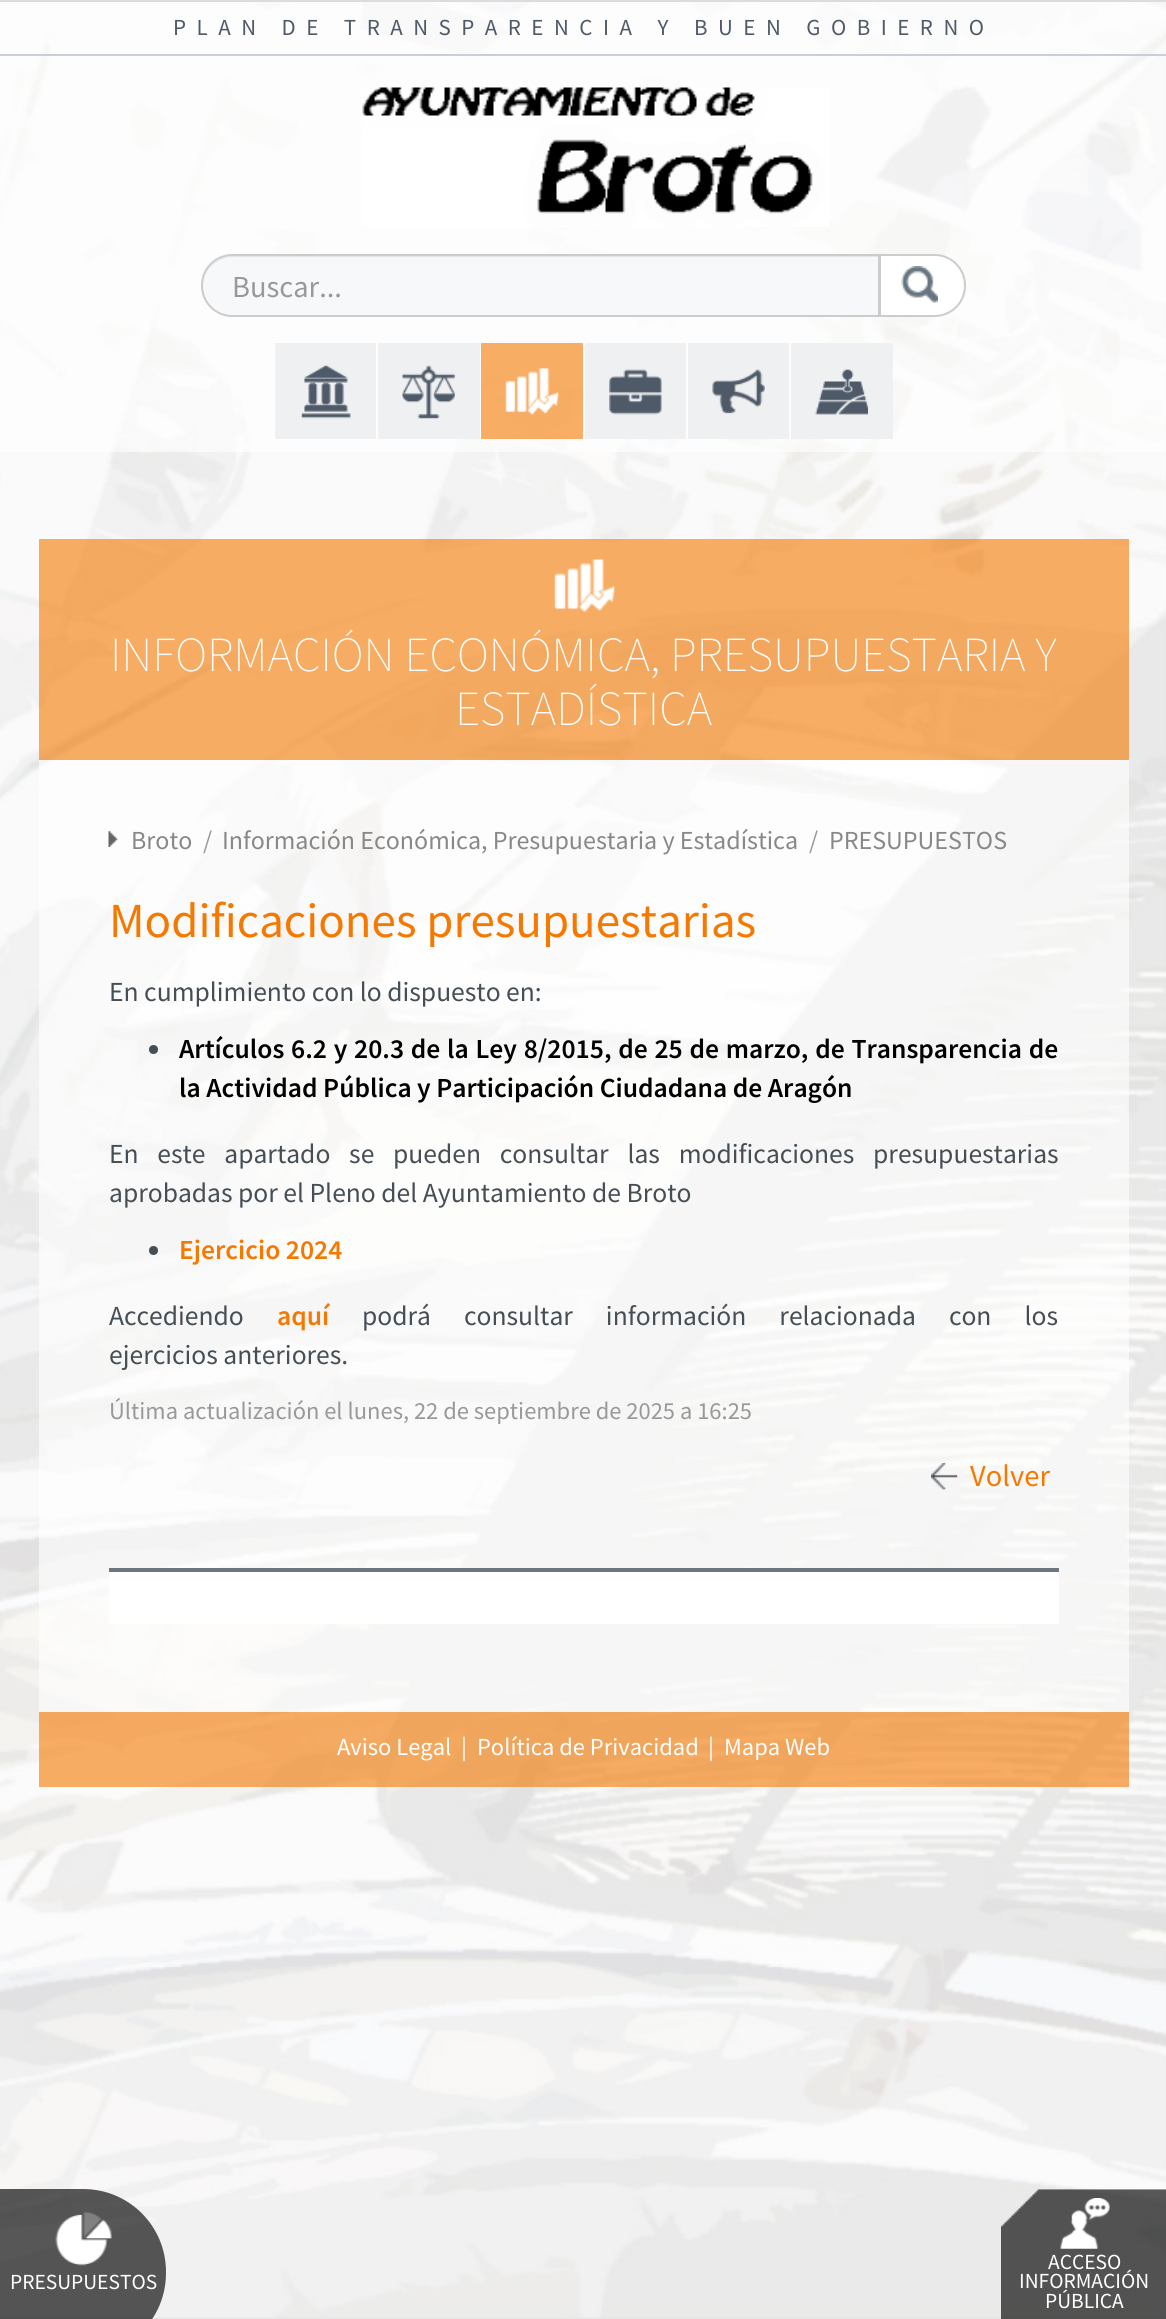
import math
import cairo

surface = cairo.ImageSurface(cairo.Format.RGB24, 1166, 2319)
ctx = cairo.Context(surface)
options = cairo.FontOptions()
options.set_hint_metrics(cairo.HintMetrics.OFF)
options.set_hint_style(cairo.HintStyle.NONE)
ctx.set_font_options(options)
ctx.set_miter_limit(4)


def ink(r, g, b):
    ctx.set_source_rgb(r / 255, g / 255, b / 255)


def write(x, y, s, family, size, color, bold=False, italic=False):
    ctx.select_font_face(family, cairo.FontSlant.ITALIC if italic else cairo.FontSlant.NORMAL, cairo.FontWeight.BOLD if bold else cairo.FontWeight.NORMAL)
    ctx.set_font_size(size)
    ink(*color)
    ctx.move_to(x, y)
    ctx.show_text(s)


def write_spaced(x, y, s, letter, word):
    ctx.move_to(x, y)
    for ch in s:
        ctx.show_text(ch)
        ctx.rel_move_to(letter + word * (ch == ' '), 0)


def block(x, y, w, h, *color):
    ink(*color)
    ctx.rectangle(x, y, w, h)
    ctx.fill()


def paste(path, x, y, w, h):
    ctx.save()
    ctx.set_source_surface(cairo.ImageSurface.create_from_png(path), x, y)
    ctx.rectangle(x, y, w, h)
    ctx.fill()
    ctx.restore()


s1 = dict(family="Source Sans Pro", size=30.5, color=(153, 153, 153))
s2 = dict(family="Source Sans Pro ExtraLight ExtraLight", size=49, color=(255, 255, 255))
s3 = dict(family="Source Sans Pro", size=26, color=(136, 136, 136))
s4 = dict(family="Source Sans Pro", size=26, color=(153, 153, 153))
s5 = dict(family="Source Sans Pro", size=49, color=(245, 121, 0))
s6 = dict(family="Source Sans Pro", size=27.55, color=(70, 78, 85))
s7 = dict(family="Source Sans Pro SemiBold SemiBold", size=27.55, color=(0, 0, 0))
s8 = dict(family="Source Sans Pro SemiBold SemiBold", size=27.55, color=(245, 121, 0))
s9 = dict(family="Source Sans Pro", size=24.5, color=(153, 153, 153))
s10 = dict(family="Source Sans Pro", size=30.5, color=(245, 121, 0))
s11 = dict(family="Source Sans Pro", size=24.5, color=(255, 255, 255))
s12 = dict(family="Source Sans Pro", size=21.5, color=(255, 255, 255))

ink(229, 229, 229)
ctx.paint()
paste("pic1.png", 0, 2, 1166, 2316)
block(0, 0, 1166, 2, 220, 220, 220)
ctx.set_source_rgba(1, 1, 1, 0.6)
ctx.rectangle(0, 2, 1166, 52)
ctx.fill()
block(0, 54, 1166, 2, 201, 207, 214)
ctx.select_font_face("Source Sans Pro")
ctx.set_font_size(22.95)
ink(79, 90, 105)
write_spaced(173, 35, "PLAN DE TRANSPARENCIA Y BUEN GOBIERNO", 10.5, 0)
ctx.set_source_rgba(1, 1, 1, 0.6)
ctx.rectangle(0, 56, 1166, 287)
ctx.fill()
paste("pic2.png", 362, 87, 467, 140)
ink(246, 248, 249)
ctx.new_path()
ctx.move_to(232.5, 254)
ctx.line_to(880, 254)
ctx.line_to(880, 317)
ctx.line_to(232.5, 317)
ctx.curve_to(215, 317, 201, 303, 201, 285.5)
ctx.curve_to(201, 268, 215, 254, 232.5, 254)
ctx.close_path()
ctx.fill()
ink(228, 229, 230)
ctx.new_path()
ctx.move_to(233, 257)
ctx.line_to(878, 257)
ctx.line_to(878, 315)
ctx.line_to(879, 315)
ctx.line_to(879, 256)
ctx.line_to(232, 256)
ctx.curve_to(216, 256, 203, 270, 203, 286)
ctx.curve_to(203, 271, 216, 257, 233, 257)
ctx.close_path()
ctx.fill()
ctx.new_path()
ctx.move_to(232.5, 255)
ctx.line_to(879, 255)
ctx.line_to(879, 316)
ctx.line_to(232.5, 316)
ctx.curve_to(215.5, 316, 202, 302.5, 202, 285.5)
ctx.curve_to(202, 268.5, 215.5, 255, 232.5, 255)
ctx.close_path()
ink(204, 204, 204)
ctx.stroke()
write(232, 297, "Buscar...", **s1)
ink(255, 255, 255)
ctx.new_path()
ctx.move_to(880, 255)
ctx.line_to(934.5, 255)
ctx.curve_to(951.5, 255, 965, 268.5, 965, 285.5)
ctx.curve_to(965, 302.5, 951.5, 316, 934.5, 316)
ctx.line_to(880, 316)
ctx.close_path()
ctx.fill_preserve()
ink(204, 204, 204)
ctx.stroke()
paste("pic3.png", 901, 266, 37, 37)
ctx.set_source_rgba(1, 1, 1, 0.6)
ctx.rectangle(0, 343, 1166, 109)
ctx.fill()
block(275, 343, 101, 96, 239, 240, 241)
paste("pic4.png", 301, 365, 50, 54)
block(378, 343, 102, 96, 239, 240, 241)
paste("pic5.png", 402, 365, 53, 54)
ctx.set_source_rgba(0.961, 0.475, 0, 0.6)
ctx.rectangle(481, 343, 102, 96)
ctx.fill()
paste("pic6.png", 505, 368, 54, 47)
block(585, 343, 101, 96, 239, 240, 241)
paste("pic7.png", 609, 369, 53, 46)
block(688, 343, 101, 96, 239, 240, 241)
paste("pic8.png", 712, 369, 53, 45)
block(791, 343, 102, 96, 239, 240, 241)
paste("pic9.png", 815, 369, 53, 46)
ctx.set_source_rgba(0.961, 0.475, 0, 0.6)
ctx.rectangle(39, 539, 1090, 221)
ctx.fill()
paste("pic10.png", 554, 559, 61, 53)
write(110, 671, "INFORMACIÓN ECONÓMICA, PRESUPUESTARIA Y", **s2)
write(455, 725, "ESTADÍSTICA", **s2)
ctx.set_source_rgba(1, 1, 1, 0.6)
ctx.rectangle(39, 760, 1090, 952)
ctx.fill()
paste("pic11.png", 108, 831, 10, 16)
write(131, 849, "Broto", **s3)
write(203, 849, "/", **s4)
write(222, 849, "Información Económica, Presupuestaria y Estadística", **s3)
write(809, 849, "/", **s4)
write(829, 849, "PRESUPUESTOS", **s3)
write(109, 937, "Modificaciones presupuestarias", **s5)
write(109, 1001, "En cumplimiento con lo dispuesto en:", **s6)
ctx.new_path()
ctx.arc(153.5, 1049.5, 4.5, 0, 2 * math.pi)
ctx.fill()
ctx.select_font_face("Source Sans Pro SemiBold SemiBold")
ink(0, 0, 0)
write_spaced(179, 1058, "Artículos 6.2 y 20.3 de la Ley 8/2015, de 25 de marzo, de Transparencia de", 0, 1.25)
write(179, 1097, "la Actividad Pública y Participación Ciudadana de Aragón", **s7)
ctx.select_font_face("Source Sans Pro")
ink(70, 78, 85)
write_spaced(109, 1163, "En este apartado se pueden consultar las modificaciones presupuestarias", 0, 13.25)
write(109, 1202, "aprobadas por el Pleno del Ayuntamiento de Broto", **s6)
ctx.new_path()
ctx.arc(153.5, 1250.5, 4.5, 0, 2 * math.pi)
ctx.fill()
write(179, 1259, "Ejercicio 2024", **s8)
write(109, 1325, "Accediendo", **s6)
write(277, 1325, "aquí", **s8)
ctx.select_font_face("Source Sans Pro")
ink(70, 78, 85)
write_spaced(362, 1325, "podrá consultar información relacionada con los", 0, 27.5)
write(109, 1364, "ejercicios anteriores.", **s6)
write(109, 1419, "Última actualización el lunes, 22 de septiembre de 2025 a 16:25", **s9)
paste("pic12.png", 931, 1463, 27, 27)
write(970, 1486, "Volver", **s10)
block(109, 1572, 950, 52, 255, 255, 255)
block(109, 1568, 950, 4, 109, 118, 126)
ctx.set_source_rgba(0.961, 0.475, 0, 0.6)
ctx.rectangle(39, 1712, 1090, 75)
ctx.fill()
write(337, 1755, "Aviso Legal", **s11)
write(461, 1755, "|", **s11)
write(477, 1755, "Política de Privacidad", **s11)
write(708, 1755, "|", **s11)
write(724, 1755, "Mapa Web", **s11)
ctx.set_source_rgba(0, 0, 0, 0.65)
ctx.new_path()
ctx.move_to(0, 2189)
ctx.line_to(83, 2189)
ctx.curve_to(129, 2189, 166, 2226, 166, 2272)
ctx.line_to(166, 2273)
ctx.curve_to(166, 2319, 129, 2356, 83, 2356)
ctx.line_to(0, 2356)
ctx.close_path()
ctx.fill()
paste("pic13.png", 55, 2211, 57, 55)
write(10, 2289, "PRESUPUESTOS", **s12)
paste("pic14.png", 1001, 2189, 165, 130)
paste("pic15.png", 1059, 2198, 51, 51)
write(1048, 2269, "ACCESO", **s12)
write(1019, 2288, "INFORMACIÓN", **s12)
write(1045, 2308, "PÚBLICA", **s12)
surface.write_to_png("screenshot.png")
